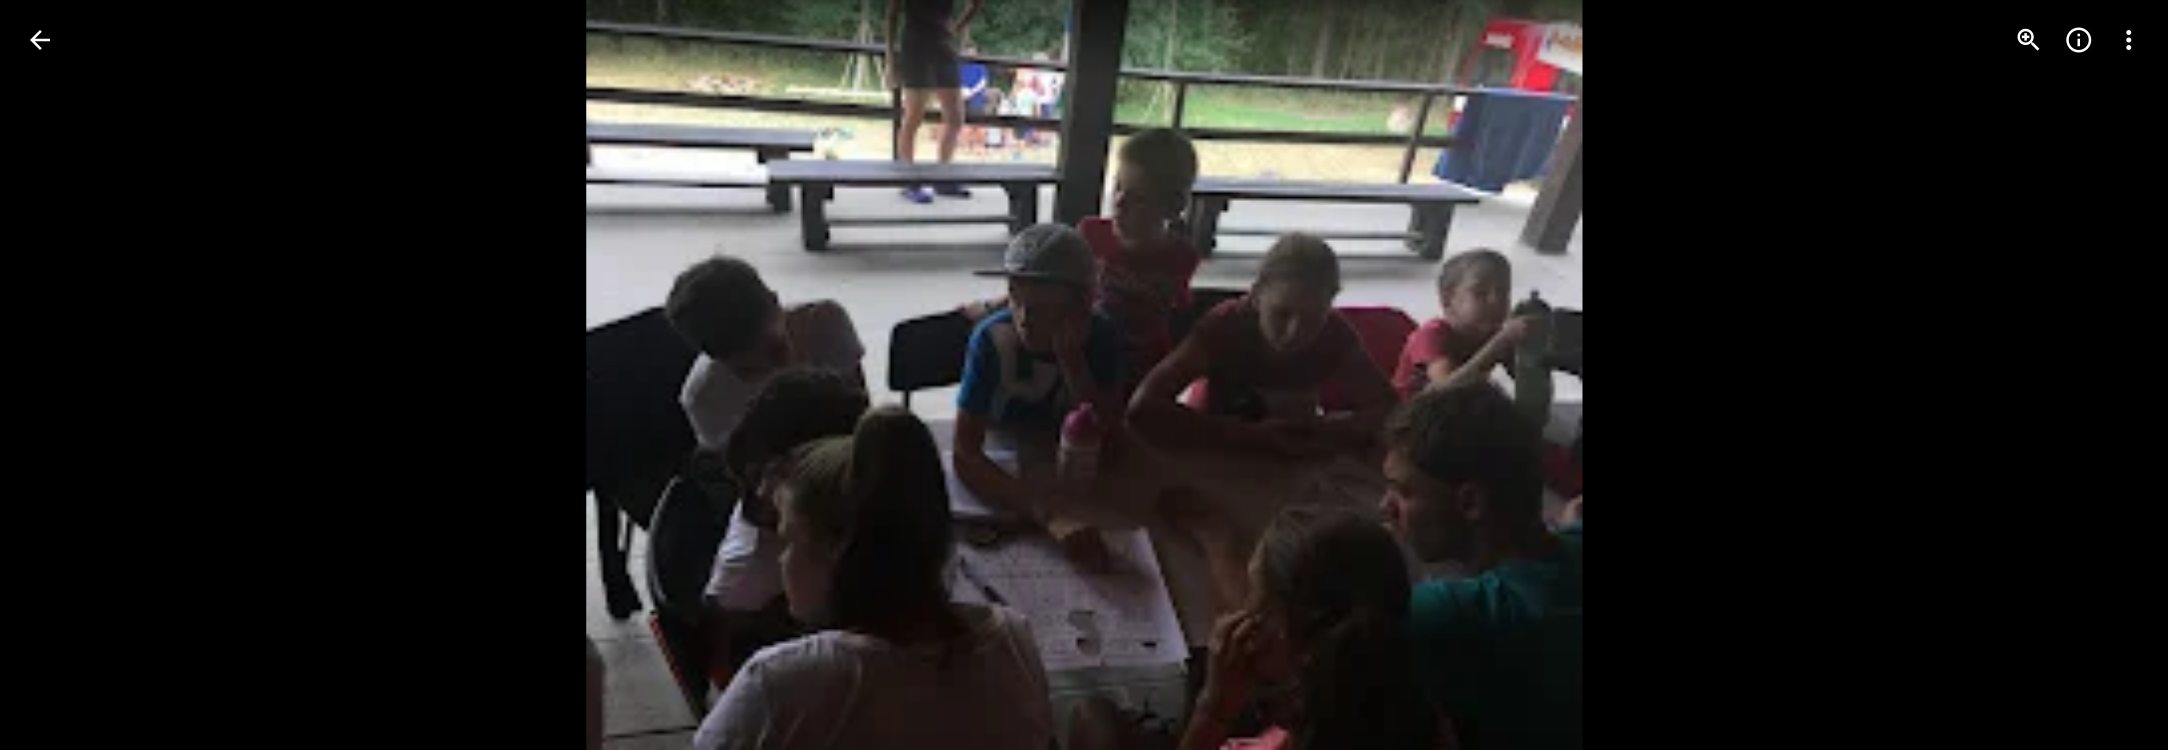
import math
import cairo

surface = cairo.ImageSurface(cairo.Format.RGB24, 2168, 750)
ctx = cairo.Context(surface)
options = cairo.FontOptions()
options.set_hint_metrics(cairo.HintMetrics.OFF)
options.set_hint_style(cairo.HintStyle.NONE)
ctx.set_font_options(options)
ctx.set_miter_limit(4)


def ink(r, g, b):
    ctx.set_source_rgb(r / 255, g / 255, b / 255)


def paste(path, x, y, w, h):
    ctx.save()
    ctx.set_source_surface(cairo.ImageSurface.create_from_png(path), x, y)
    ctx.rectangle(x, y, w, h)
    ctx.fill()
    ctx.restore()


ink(0, 0, 0)
ctx.paint()
paste("pic5.png", 586, 0, 997, 750)
gradient = cairo.LinearGradient(1084, 0, 1084, 80)
gradient.add_color_stop_rgba(0, 0, 0, 0, 0.6)
gradient.add_color_stop_rgba(1, 0, 0, 0, 0)
ctx.set_source(gradient)
ctx.rectangle(586, 0, 997, 77)
ctx.fill()
paste("pic1.png", 30, 30, 20, 20)
paste("pic2.png", 2017, 28, 23, 23)
paste("pic3.png", 2066, 27, 26, 26)
paste("pic4.png", 2126, 30, 6, 20)
surface.write_to_png("screenshot.png")
